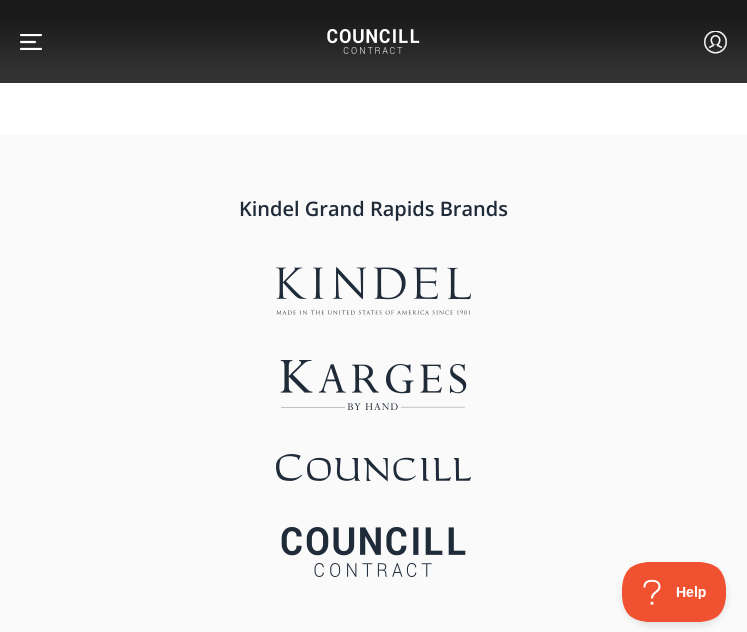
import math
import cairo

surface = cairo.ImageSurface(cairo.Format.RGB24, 747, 632)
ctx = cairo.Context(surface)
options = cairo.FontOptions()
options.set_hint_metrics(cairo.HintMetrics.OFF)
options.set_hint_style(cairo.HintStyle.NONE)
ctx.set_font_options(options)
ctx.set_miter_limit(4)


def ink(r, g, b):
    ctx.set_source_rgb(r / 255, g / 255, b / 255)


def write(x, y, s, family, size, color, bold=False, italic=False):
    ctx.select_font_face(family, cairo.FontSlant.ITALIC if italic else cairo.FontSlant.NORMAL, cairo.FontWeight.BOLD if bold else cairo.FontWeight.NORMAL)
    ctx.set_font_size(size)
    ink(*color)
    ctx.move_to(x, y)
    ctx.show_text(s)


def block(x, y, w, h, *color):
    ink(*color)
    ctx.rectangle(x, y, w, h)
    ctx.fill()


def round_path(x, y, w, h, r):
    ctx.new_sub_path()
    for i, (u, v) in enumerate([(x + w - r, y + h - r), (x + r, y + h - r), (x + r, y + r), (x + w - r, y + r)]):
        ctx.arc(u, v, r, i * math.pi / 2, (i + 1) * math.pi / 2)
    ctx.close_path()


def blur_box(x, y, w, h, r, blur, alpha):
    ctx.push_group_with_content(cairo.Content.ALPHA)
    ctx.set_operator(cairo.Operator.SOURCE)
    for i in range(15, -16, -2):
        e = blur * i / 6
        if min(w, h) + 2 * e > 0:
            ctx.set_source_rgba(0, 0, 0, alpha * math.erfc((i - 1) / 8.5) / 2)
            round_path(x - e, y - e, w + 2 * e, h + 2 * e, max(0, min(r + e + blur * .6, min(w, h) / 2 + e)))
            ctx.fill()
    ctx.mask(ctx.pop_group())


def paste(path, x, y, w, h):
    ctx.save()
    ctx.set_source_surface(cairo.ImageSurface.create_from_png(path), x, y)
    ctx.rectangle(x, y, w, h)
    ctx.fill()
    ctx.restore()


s1 = dict(family="Open Sans SemiBold", size=20, color=(32, 43, 57))

ink(255, 255, 255)
ctx.paint()
gradient = cairo.LinearGradient(374, 0, 374, 83)
gradient.add_color_stop_rgba(0, 0.102, 0.102, 0.102, 1)
gradient.add_color_stop_rgba(0.2, 0.102, 0.102, 0.102, 1)
gradient.add_color_stop_rgba(0.9, 0.2, 0.2, 0.2, 1)
ctx.set_source(gradient)
ctx.rectangle(0, 0, 747, 83)
ctx.fill()
paste("pic1.png", 20, 34, 22, 16)
paste("pic2.png", 327, 29, 93, 25)
paste("pic3.png", 704, 31, 23, 23)
block(0, 135, 747, 497, 250, 250, 250)
write(239, 216, "Kindel Grand Rapids Brands", **s1)
paste("pic4.png", 276, 267, 195, 48)
paste("pic5.png", 280, 360, 187, 50)
paste("pic6.png", 276, 454, 195, 28)
paste("pic7.png", 281, 527, 185, 50)
ink(0, 0, 0)
blur_box(622, 566, 105, 60, 30, 3.5, 0.1)
paste("pic8.png", 622, 562, 104, 60)
surface.write_to_png("screenshot.png")
